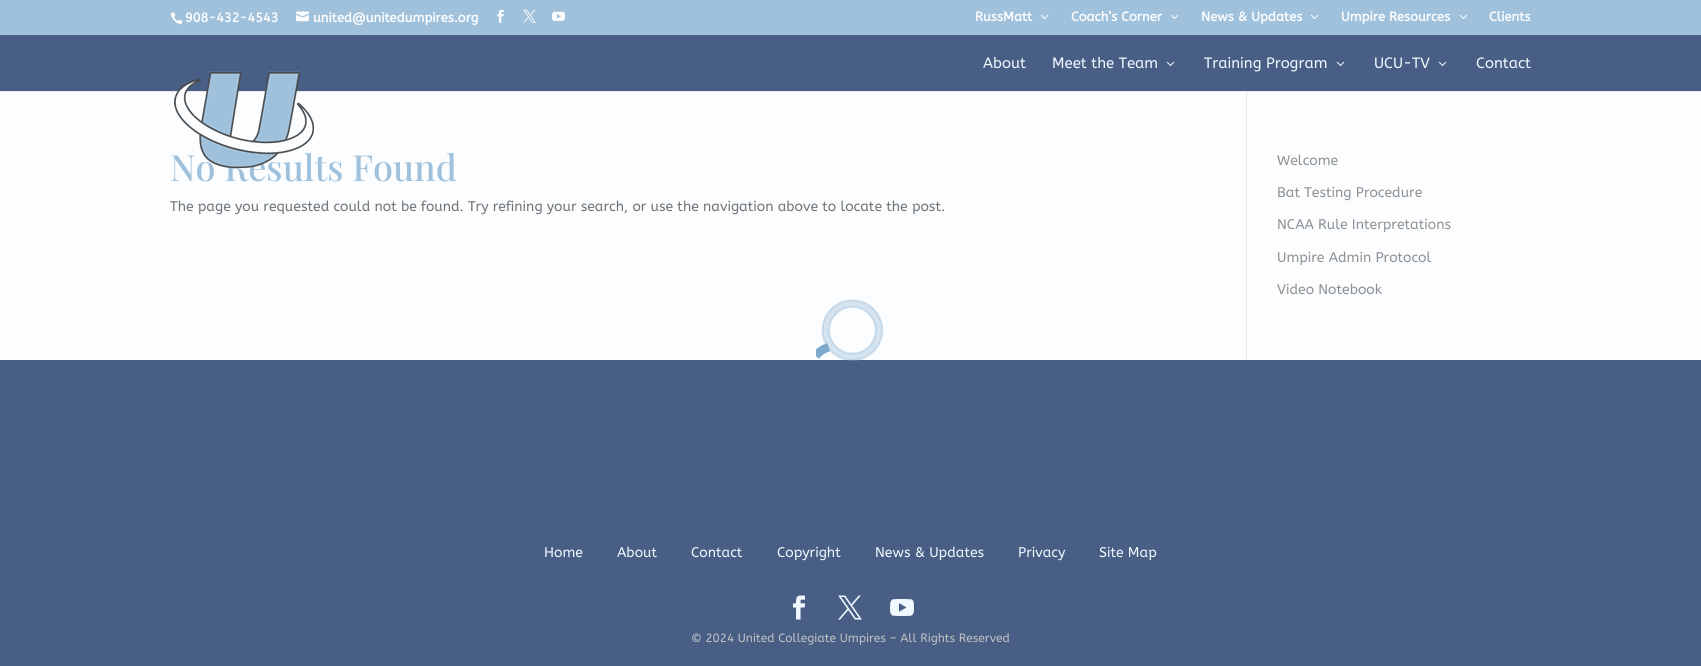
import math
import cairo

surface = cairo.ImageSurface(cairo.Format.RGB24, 1701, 666)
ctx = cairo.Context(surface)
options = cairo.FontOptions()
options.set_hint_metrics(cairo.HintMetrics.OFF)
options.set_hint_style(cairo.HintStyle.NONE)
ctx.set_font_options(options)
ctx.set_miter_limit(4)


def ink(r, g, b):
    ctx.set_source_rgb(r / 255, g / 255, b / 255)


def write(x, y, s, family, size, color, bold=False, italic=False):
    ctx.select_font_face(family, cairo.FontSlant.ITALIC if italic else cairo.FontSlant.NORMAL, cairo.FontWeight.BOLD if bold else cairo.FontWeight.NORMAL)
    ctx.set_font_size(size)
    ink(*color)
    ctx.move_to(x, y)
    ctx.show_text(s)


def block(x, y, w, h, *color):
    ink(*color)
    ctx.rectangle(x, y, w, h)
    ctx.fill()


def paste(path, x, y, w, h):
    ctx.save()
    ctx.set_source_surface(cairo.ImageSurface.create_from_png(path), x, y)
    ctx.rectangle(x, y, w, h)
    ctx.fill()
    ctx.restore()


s1 = dict(family="ABeeZee", size=13, color=(251, 253, 255), bold=True)
s2 = dict(family="ABeeZee", size=15, color=(240, 249, 255))
s3 = dict(family="Playfair Display Medium", size=36, color=(160, 193, 219))
s4 = dict(family="ABeeZee", size=14, color=(113, 116, 118))
s5 = dict(family="ABeeZee", size=14, color=(143, 146, 148))
s6 = dict(family="ABeeZee", size=14, color=(240, 249, 255))
s7 = dict(family="ABeeZee", size=12, color=(191, 194, 196))

ink(72, 94, 132)
ctx.paint()
block(0, 0, 1701, 35, 160, 193, 219)
paste("pic1.png", 170, 12, 13, 13)
write(185, 22, "908-432-4543", **s1)
paste("pic2.png", 296, 11, 13, 11)
write(313, 22, "united@unitedumpires.org", **s1)
paste("pic3.png", 497, 9, 7, 14)
paste("pic4.png", 523, 9, 13, 14)
paste("pic5.png", 552, 11, 13, 10)
write(975, 21, "RussMatt", **s1)
paste("pic6.png", 1040, 14, 9, 5)
write(1071, 21, "Coach’s Corner", **s1)
paste("pic6.png", 1170, 14, 9, 5)
write(1201, 21, "News & Updates", **s1)
paste("pic6.png", 1310, 14, 9, 5)
write(1341, 21, "Umpire Resources", **s1)
paste("pic6.png", 1459, 14, 9, 5)
write(1489, 21, "Clients", **s1)
block(0, 92, 1701, 268, 251, 253, 255)
block(0, 91, 1701, 1, 233, 236, 238)
block(1246, 90, 1, 270, 230, 233, 235)
block(1246, 90, 1, 1, 72, 94, 132)
write(983, 68, "About", **s2)
write(1052, 68, "Meet the Team", **s2)
paste("pic7.png", 1166, 61, 9, 5)
write(1204, 68, "Training Program", **s2)
paste("pic7.png", 1336, 61, 9, 5)
write(1374, 68, "UCU-TV", **s2)
paste("pic7.png", 1438, 61, 9, 5)
write(1476, 68, "Contact", **s2)
write(170, 181, "No Results Found", **s3)
paste("pic8.png", 174, 71, 140, 98)
block(1246, 91, 1, 1, 214, 217, 219)
write(170, 211, "The page you requested could not be found. Try refining your search, or use the navigation above to locate the post.", **s4)
write(1277, 165, "Welcome", **s5)
write(1277, 197, "Bat Testing Procedure", **s5)
write(1277, 229, "NCAA Rule Interpretations", **s5)
write(1277, 262, "Umpire Admin Protocol", **s5)
write(1277, 294, "Video Notebook", **s5)
write(544, 557, "Home", **s6)
write(617, 557, "About", **s6)
write(691, 557, "Contact", **s6)
write(777, 557, "Copyright", **s6)
write(875, 557, "News & Updates", **s6)
write(1018, 557, "Privacy", **s6)
write(1099, 557, "Site Map", **s6)
paste("pic9.png", 793, 595, 13, 25)
paste("pic10.png", 838, 595, 24, 25)
paste("pic11.png", 890, 599, 24, 17)
write(691, 642, "© 2024 United Collegiate Umpires – All Rights Reserved", **s7)
paste("pic12.png", 816, 299, 68, 62)
surface.write_to_png("screenshot.png")
